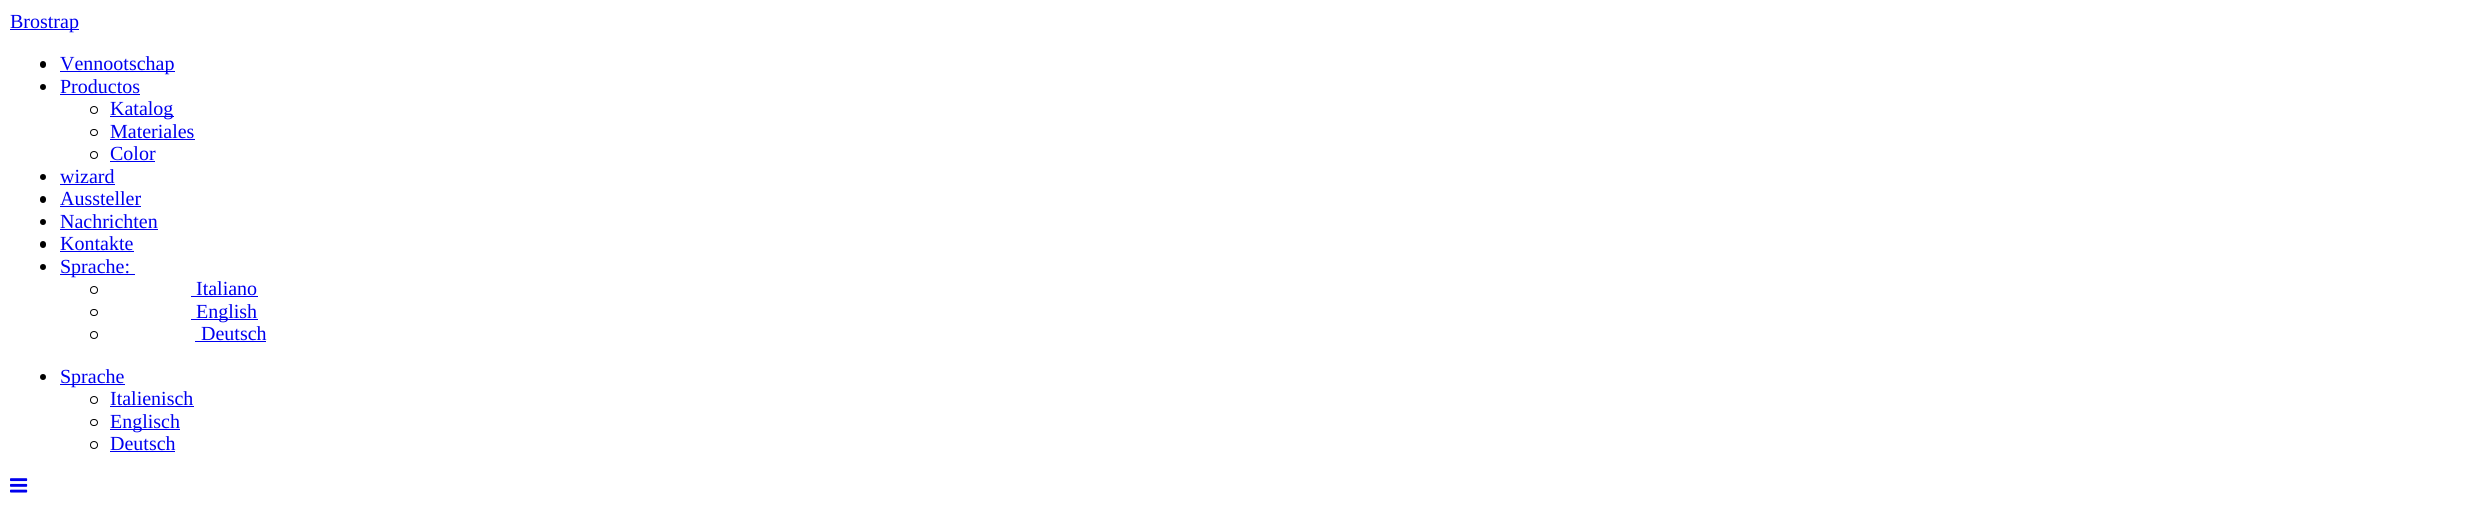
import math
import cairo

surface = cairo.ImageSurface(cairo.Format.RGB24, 2490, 515)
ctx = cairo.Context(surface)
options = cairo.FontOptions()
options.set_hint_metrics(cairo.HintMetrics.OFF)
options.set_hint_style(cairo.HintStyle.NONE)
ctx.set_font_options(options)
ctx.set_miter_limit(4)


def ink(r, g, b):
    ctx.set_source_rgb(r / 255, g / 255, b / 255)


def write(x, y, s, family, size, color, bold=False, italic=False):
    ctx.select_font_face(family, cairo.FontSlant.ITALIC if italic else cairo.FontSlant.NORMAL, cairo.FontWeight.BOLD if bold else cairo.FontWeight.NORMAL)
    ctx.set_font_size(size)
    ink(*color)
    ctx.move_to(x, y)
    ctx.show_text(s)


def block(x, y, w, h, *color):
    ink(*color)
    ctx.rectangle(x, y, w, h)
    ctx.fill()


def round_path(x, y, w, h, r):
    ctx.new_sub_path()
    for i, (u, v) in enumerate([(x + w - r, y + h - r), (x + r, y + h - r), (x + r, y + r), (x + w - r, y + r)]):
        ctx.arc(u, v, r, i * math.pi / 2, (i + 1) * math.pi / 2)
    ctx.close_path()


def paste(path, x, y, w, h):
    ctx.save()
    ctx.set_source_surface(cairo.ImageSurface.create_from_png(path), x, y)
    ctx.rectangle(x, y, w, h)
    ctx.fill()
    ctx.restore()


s1 = dict(family="Liberation Serif", size=20, color=(0, 0, 238))

ink(255, 255, 255)
ctx.paint()
block(10, 29, 69, 1, 0, 0, 238)
write(10, 28, "Brostrap", **s1)
ink(0, 0, 0)
round_path(40, 61, 6, 7, 3)
ctx.fill()
block(60, 71, 115, 1, 0, 0, 238)
write(60, 70, "Vennootschap", **s1)
ink(0, 0, 0)
ctx.new_path()
ctx.arc(43, 87, 3, 0, 2 * math.pi)
ctx.fill()
write(60, 93, "Productos", **s1)
block(60, 94, 80, 1, 0, 0, 238)
ctx.new_path()
ctx.arc(94, 110, 3.5, 0, 2 * math.pi)
ink(0, 0, 0)
ctx.set_line_width(1)
ctx.stroke()
block(110, 116, 64, 1, 0, 0, 238)
write(110, 115, "Katalog", **s1)
round_path(90.5, 129.5, 7, 6, 3)
ink(0, 0, 0)
ctx.stroke()
write(110, 138, "Materiales", **s1)
block(110, 139, 85, 1, 0, 0, 238)
ctx.new_path()
ctx.arc(94, 155, 3.5, 0, 2 * math.pi)
ink(0, 0, 0)
ctx.stroke()
write(110, 160, "Color", **s1)
block(110, 161, 45, 1, 0, 0, 238)
ink(0, 0, 0)
ctx.new_path()
ctx.arc(43, 177, 3, 0, 2 * math.pi)
ctx.fill()
write(60, 183, "wizard", **s1)
block(60, 184, 55, 1, 0, 0, 238)
ink(0, 0, 0)
round_path(40, 196, 6, 7, 3)
ctx.fill()
write(60, 205, "Aussteller", **s1)
block(60, 206, 81, 1, 0, 0, 238)
ink(0, 0, 0)
ctx.new_path()
ctx.arc(43, 222, 3, 0, 2 * math.pi)
ctx.fill()
write(60, 228, "Nachrichten", **s1)
block(60, 229, 98, 1, 0, 0, 238)
ink(0, 0, 0)
round_path(40, 241, 6, 7, 3)
ctx.fill()
write(60, 250, "Kontakte", **s1)
block(60, 251, 74, 1, 0, 0, 238)
ink(0, 0, 0)
ctx.new_path()
ctx.arc(43, 267, 3, 0, 2 * math.pi)
ctx.fill()
block(60, 274, 75, 1, 0, 0, 238)
write(60, 273, "Sprache:", **s1)
ctx.new_path()
ctx.arc(94, 290, 3.5, 0, 2 * math.pi)
ink(0, 0, 0)
ctx.stroke()
write(196, 295, "Italiano", **s1)
block(191, 296, 67, 1, 0, 0, 238)
round_path(90.5, 309.5, 7, 6, 3)
ink(0, 0, 0)
ctx.stroke()
block(191, 319, 67, 1, 0, 0, 238)
write(196, 318, "English", **s1)
ctx.new_path()
ctx.arc(94, 335, 3.5, 0, 2 * math.pi)
ink(0, 0, 0)
ctx.stroke()
write(201, 340, "Deutsch", **s1)
block(195, 341, 71, 1, 0, 0, 238)
ink(0, 0, 0)
ctx.new_path()
ctx.arc(43, 377, 3, 0, 2 * math.pi)
ctx.fill()
block(60, 384, 65, 1, 0, 0, 238)
write(60, 383, "Sprache", **s1)
ctx.new_path()
ctx.arc(94, 400, 3.5, 0, 2 * math.pi)
ink(0, 0, 0)
ctx.stroke()
write(110, 405, "Italienisch", **s1)
block(110, 406, 84, 1, 0, 0, 238)
round_path(90.5, 419.5, 7, 6, 3)
ink(0, 0, 0)
ctx.stroke()
block(110, 429, 70, 1, 0, 0, 238)
write(110, 428, "Englisch", **s1)
ctx.new_path()
ctx.arc(94, 445, 3.5, 0, 2 * math.pi)
ink(0, 0, 0)
ctx.stroke()
write(110, 450, "Deutsch", **s1)
block(110, 451, 65, 1, 0, 0, 238)
paste("pic1.png", 10, 478, 18, 15)
surface.write_to_png("screenshot.png")
